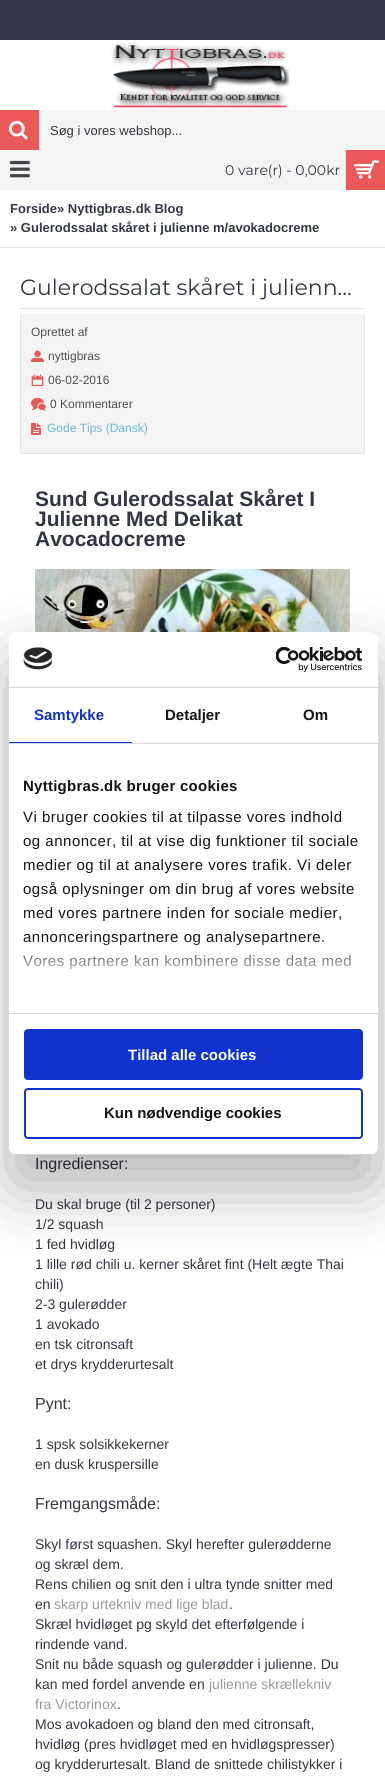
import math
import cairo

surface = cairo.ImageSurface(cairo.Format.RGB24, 385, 1785)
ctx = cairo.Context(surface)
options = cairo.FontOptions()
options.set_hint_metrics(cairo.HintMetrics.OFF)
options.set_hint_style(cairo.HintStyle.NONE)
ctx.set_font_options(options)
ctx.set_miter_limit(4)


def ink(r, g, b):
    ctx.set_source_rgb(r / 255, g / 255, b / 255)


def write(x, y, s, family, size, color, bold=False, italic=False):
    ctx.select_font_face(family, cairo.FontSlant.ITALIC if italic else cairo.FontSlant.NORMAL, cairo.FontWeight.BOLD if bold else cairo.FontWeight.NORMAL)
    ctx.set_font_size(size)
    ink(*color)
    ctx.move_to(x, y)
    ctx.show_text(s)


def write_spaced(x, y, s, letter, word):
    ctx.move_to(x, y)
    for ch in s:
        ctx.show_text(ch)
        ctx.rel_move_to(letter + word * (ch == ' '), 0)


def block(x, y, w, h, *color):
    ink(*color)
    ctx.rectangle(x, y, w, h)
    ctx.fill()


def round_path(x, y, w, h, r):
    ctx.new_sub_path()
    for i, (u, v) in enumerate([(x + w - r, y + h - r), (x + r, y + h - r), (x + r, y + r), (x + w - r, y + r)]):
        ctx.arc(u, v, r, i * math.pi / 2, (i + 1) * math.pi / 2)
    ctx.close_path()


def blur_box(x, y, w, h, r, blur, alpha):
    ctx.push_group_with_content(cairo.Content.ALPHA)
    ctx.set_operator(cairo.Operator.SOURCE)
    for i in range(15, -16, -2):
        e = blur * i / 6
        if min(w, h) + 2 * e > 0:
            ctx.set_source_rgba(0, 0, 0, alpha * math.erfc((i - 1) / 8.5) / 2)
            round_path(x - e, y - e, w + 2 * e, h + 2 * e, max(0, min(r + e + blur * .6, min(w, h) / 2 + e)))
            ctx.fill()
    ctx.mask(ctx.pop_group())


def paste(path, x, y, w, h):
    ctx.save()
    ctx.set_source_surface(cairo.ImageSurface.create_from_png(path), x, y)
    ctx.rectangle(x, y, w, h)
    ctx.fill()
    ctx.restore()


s1 = dict(family="Liberation Sans", size=13, color=(51, 55, 69))
s2 = dict(family="Montserrat", size=14, color=(51, 55, 69))
s3 = dict(family="Liberation Sans", size=13, color=(51, 55, 69), bold=True)
s4 = dict(family="Montserrat", size=22, color=(51, 55, 69))
s5 = dict(family="Liberation Sans", size=12, color=(80, 80, 80))
s6 = dict(family="Liberation Sans", size=12, color=(105, 185, 207))
s7 = dict(family="Liberation Sans", size=21, color=(51, 55, 69), bold=True)
s8 = dict(family="Liberation Sans", size=16, color=(51, 55, 69))
s9 = dict(family="Liberation Sans", size=14, color=(51, 55, 69))
s10 = dict(family="Liberation Sans", size=14, color=(153, 153, 153))
s11 = dict(family="Liberation Sans", size=15, color=(16, 50, 207), bold=True)
s12 = dict(family="Liberation Sans", size=15, color=(20, 20, 20), bold=True)
s13 = dict(family="Liberation Sans", size=15, color=(255, 255, 255), bold=True)

ink(255, 255, 255)
ctx.paint()
block(0, 0, 385, 40, 51, 55, 69)
block(0, 150, 345, 40, 244, 244, 244)
paste("pic1.png", 10, 160, 20, 18)
paste("pic2.png", 111, 43, 179, 65)
block(0, 110, 39, 40, 235, 88, 88)
block(39, 110, 1, 40, 228, 228, 228)
paste("pic3.png", 9, 120, 19, 20)
block(40, 110, 345, 40, 244, 244, 244)
write(50, 135, "Søg i vores webshop...", **s1)
write(225, 175, "0 vare(r) - 0,00kr", **s2)
block(346, 150, 39, 40, 235, 88, 88)
block(345, 150, 1, 40, 228, 228, 228)
paste("pic4.png", 354, 160, 25, 19)
block(0, 247, 385, 1, 228, 228, 228)
write(10, 213, "Forside» Nyttigbras.dk Blog", **s3)
write(10, 232, "» Gulerodssalat skåret i julienne m/avokadocreme", **s3)
block(20, 308, 345, 1, 228, 228, 228)
write(20, 295, "Gulerodssalat skåret i julienn…", **s4)
block(21, 314, 343, 139, 244, 244, 244)
block(364, 314, 1, 140, 228, 228, 228)
block(20, 453, 345, 1, 228, 228, 228)
block(20, 314, 1, 140, 228, 228, 228)
write(31, 336, "Oprettet af", **s5)
paste("pic5.png", 31, 350, 13, 12)
write(48, 360, "nyttigbras", **s5)
paste("pic6.png", 31, 374, 13, 13)
write(48, 384, "06-02-2016", **s5)
paste("pic7.png", 31, 397, 15, 14)
write(50, 408, "0 Kommentarer", **s5)
paste("pic8.png", 31, 423, 10, 12)
write(47, 432, "Gode Tips (Dansk)", **s6)
write(35, 506, "Sund Gulerodssalat Skåret I", **s7)
write(35, 526, "Julienne Med Delikat", **s7)
write(35, 546, "Avocadocreme", **s7)
paste("pic9.png", 35, 569, 315, 63)
write(35, 1169, "Ingredienser:", **s8)
write(35, 1209, "Du skal bruge (til 2 personer)", **s9)
write(35, 1229, "1/2 squash", **s9)
write(35, 1249, "1 fed hvidløg", **s9)
write(35, 1269, "1 lille rød chili u. kerner skåret fint (Helt ægte Thai", **s9)
write(35, 1289, "chili)", **s9)
write(35, 1309, "2-3 gulerødder", **s9)
write(35, 1329, "1 avokado", **s9)
write(35, 1349, "en tsk citronsaft", **s9)
write(35, 1369, "et drys krydderurtesalt", **s9)
write(35, 1409, "Pynt:", **s8)
write(35, 1449, "1 spsk solsikkekerner", **s9)
write(35, 1469, "en dusk kruspersille", **s9)
write(35, 1509, "Fremgangsmåde:", **s8)
write(35, 1549, "Skyl først squashen. Skyl herefter gulerødderne", **s9)
write(35, 1569, "og skræl dem.", **s9)
write(35, 1589, "Rens chilien og snit den i ultra tynde snitter med", **s9)
write(35, 1609, "en", **s9)
write(54, 1609, "skarp urtekniv med lige blad", **s10)
write(229, 1609, ".", **s9)
write(35, 1629, "Skræl hvidløget pg skyld det efterfølgende i", **s9)
write(35, 1649, "rindende vand.", **s9)
write(35, 1669, "Snit nu både squash og gulerødder i julienne. Du", **s9)
write(35, 1689, "kan med fordel anvende en", **s9)
write(209, 1689, "julienne skrællekniv", **s10)
write(35, 1709, "fra Victorinox", **s10)
write(117, 1709, ".", **s9)
write(35, 1729, "Mos avokadoen og bland den med citronsaft,", **s9)
write(35, 1749, "hvidløg (pres hvidløget med en hvidløgspresser)", **s9)
write(35, 1769, "og krydderurtesalt. Bland de snittede chilistykker i", **s9)
ink(0, 0, 0)
blur_box(9, 664, 369, 523, 8, 34, 0.3)
ink(255, 255, 255)
round_path(9, 632, 369, 523, 8)
ctx.fill()
block(9, 687, 369, 1, 214, 214, 214)
paste("pic10.png", 23, 647, 30, 23)
paste("pic11.png", 276, 647, 87, 25)
block(9, 743, 369, 1, 214, 214, 214)
block(9, 742, 123, 1, 16, 50, 207)
write(34, 720, "Samtykke", **s11)
write(165, 720, "Detaljer", **s12)
write(303, 720, "Om", **s12)
block(9, 1013, 369, 1, 214, 214, 214)
ink(20, 20, 20)
write_spaced(23, 791, "Nyttigbras.dk bruger cookies", 0.25, 0)
ctx.select_font_face("Liberation Sans")
write_spaced(23, 822, "Vi bruger cookies til at tilpasse vores indhold", 0.5, 0)
write_spaced(23, 846, "og annoncer, til at vise dig funktioner til sociale", 0.5, 0)
write_spaced(23, 870, "medier og til at analysere vores trafik. Vi deler", 0.5, 0)
write_spaced(23, 894, "også oplysninger om din brug af vores website", 0.5, 0)
write_spaced(23, 918, "med vores partnere inden for sociale medier,", 0.5, 0)
write_spaced(23, 942, "annonceringspartnere og analysepartnere.", 0.5, 0)
write_spaced(23, 966, "Vores partnere kan kombinere disse data med", 0.5, 0)
gradient = cairo.LinearGradient(187, 1013, 187, 938)
gradient.add_color_stop_rgba(0, 1, 1, 1, 1)
gradient.add_color_stop_rgba(0.5, 1, 1, 1, 0.8)
gradient.add_color_stop_rgba(1, 1, 1, 1, 0)
ctx.set_source(gradient)
ctx.rectangle(23, 939, 328, 31)
ctx.fill()
ctx.save()
round_path(9, 632, 369, 523, 8)
ctx.clip()
block(9, 1154, 369, 1, 214, 214, 214)
ctx.restore()
ink(16, 50, 207)
round_path(25, 1030, 337, 49, 3)
ctx.fill_preserve()
ctx.stroke()
write(128, 1060, "Tillad alle cookies", **s13)
round_path(25, 1089, 337, 49, 3)
ink(16, 50, 207)
ctx.stroke()
write(104, 1118, "Kun nødvendige cookies", **s12)
surface.write_to_png("screenshot.png")
